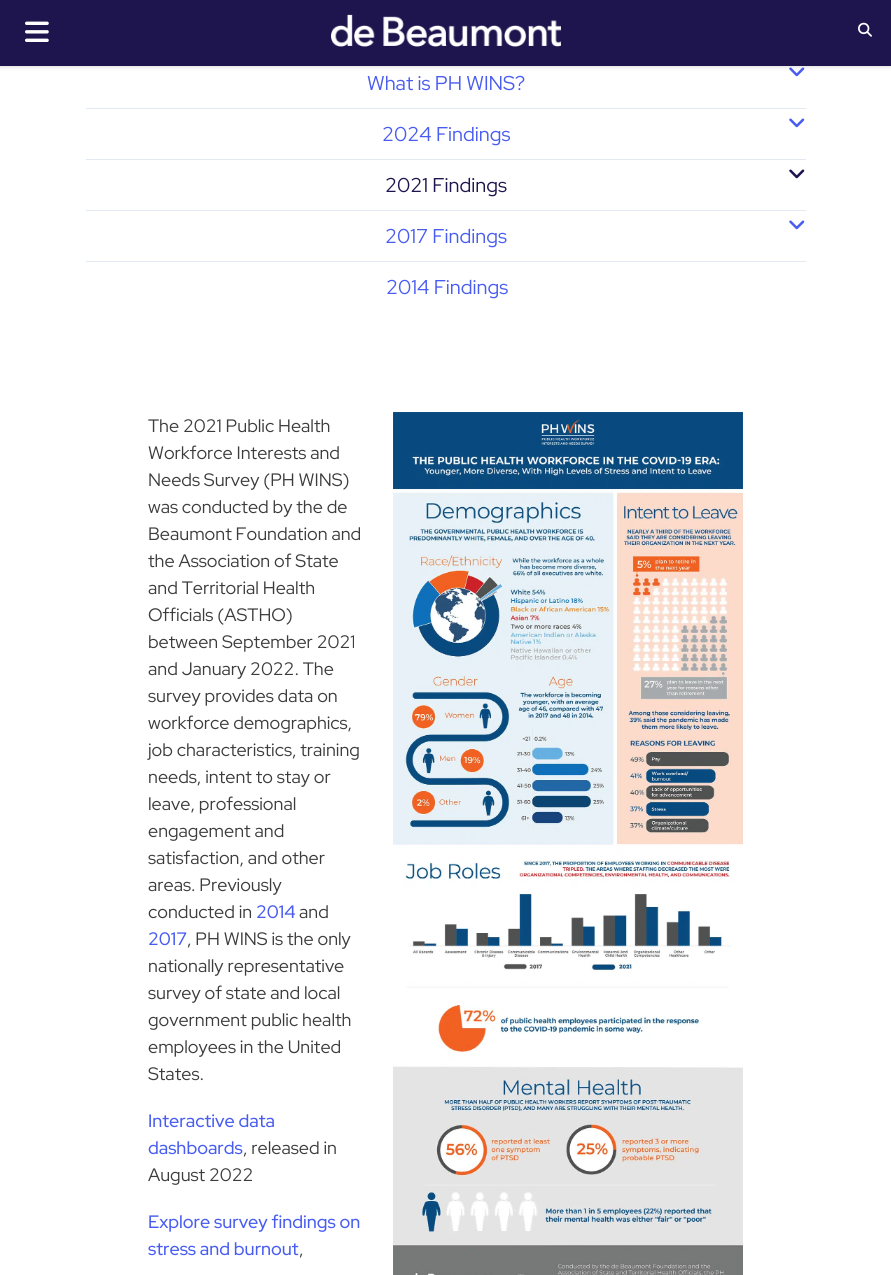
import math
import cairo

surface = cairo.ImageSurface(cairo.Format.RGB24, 891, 1275)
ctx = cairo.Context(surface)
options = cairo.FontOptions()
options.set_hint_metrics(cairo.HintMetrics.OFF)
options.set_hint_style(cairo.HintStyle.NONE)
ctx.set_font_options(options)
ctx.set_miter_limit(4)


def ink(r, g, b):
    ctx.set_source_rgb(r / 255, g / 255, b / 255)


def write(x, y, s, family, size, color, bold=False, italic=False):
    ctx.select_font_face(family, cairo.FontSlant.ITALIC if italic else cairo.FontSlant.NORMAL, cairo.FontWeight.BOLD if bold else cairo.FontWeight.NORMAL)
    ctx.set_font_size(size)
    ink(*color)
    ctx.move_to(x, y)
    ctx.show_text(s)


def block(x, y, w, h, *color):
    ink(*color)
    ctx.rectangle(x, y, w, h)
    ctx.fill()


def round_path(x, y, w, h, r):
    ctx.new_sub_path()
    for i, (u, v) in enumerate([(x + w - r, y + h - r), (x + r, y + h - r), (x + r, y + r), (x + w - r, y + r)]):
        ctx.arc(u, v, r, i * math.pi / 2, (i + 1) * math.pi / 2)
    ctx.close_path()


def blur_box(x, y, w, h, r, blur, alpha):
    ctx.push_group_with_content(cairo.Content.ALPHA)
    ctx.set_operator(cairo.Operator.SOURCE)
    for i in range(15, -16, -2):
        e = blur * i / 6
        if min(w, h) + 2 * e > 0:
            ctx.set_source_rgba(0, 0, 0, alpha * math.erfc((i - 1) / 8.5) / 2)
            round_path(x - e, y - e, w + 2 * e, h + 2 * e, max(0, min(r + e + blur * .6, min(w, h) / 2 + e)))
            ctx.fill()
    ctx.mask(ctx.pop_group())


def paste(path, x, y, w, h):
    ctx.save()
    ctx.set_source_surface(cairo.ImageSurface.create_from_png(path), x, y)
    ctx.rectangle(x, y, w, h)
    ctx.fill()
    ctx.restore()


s1 = dict(family="Red Hat Display", size=20, color=(72, 92, 240))
s2 = dict(family="Red Hat Display", size=20, color=(30, 21, 78))
s3 = dict(family="Red Hat Display", size=18, color=(60, 60, 60))
s4 = dict(family="Red Hat Display Medium", size=18, color=(72, 92, 240))

ink(255, 255, 255)
ctx.paint()
paste("pic4.png", 789, 67, 16, 10)
ink(0, 0, 0)
blur_box(0, 0, 891, 66, 0, 2.5, 0.2)
block(0, 0, 891, 66, 30, 21, 78)
paste("pic1.png", 25, 21, 24, 21)
paste("pic2.png", 331, 14, 230, 33)
paste("pic3.png", 858, 22, 14, 15)
write(367, 90, "What is PH WINS?", **s1)
block(86, 108, 720, 1, 227, 233, 242)
paste("pic4.png", 789, 118, 16, 10)
write(382, 141, "2024 Findings", **s1)
block(86, 159, 720, 1, 227, 233, 242)
paste("pic5.png", 789, 169, 16, 10)
write(385, 192, "2021 Findings", **s2)
block(86, 210, 720, 1, 227, 233, 242)
paste("pic4.png", 789, 220, 16, 10)
write(385, 243, "2017 Findings", **s1)
block(86, 261, 720, 1, 227, 233, 242)
write(386, 294, "2014 Findings", **s1)
write(148, 432, "The 2021 Public Health", **s3)
write(148, 459, "Workforce Interests and", **s3)
write(148, 486, "Needs Survey (PH WINS)", **s3)
write(148, 513, "was conducted by the de", **s3)
write(148, 540, "Beaumont Foundation and", **s3)
write(148, 567, "the Association of State", **s3)
write(148, 594, "and Territorial Health", **s3)
write(148, 621, "Officials (ASTHO)", **s3)
write(148, 648, "between September 2021", **s3)
write(148, 675, "and January 2022. The", **s3)
write(148, 702, "survey provides data on", **s3)
write(148, 729, "workforce demographics,", **s3)
write(148, 756, "job characteristics, training", **s3)
write(148, 783, "needs, intent to stay or", **s3)
write(148, 810, "leave, professional", **s3)
write(148, 837, "engagement and", **s3)
write(148, 864, "satisfaction, and other", **s3)
write(148, 891, "areas. Previously", **s3)
write(148, 918, "conducted in", **s3)
write(256, 918, "2014", **s4)
write(299, 918, "and", **s3)
write(148, 945, "2017", **s4)
write(187, 945, ", PH WINS is the only", **s3)
write(148, 972, "nationally representative", **s3)
write(148, 999, "survey of state and local", **s3)
write(148, 1026, "government public health", **s3)
write(148, 1053, "employees in the United", **s3)
write(148, 1080, "States.", **s3)
paste("pic6.png", 393, 412, 350, 863)
write(148, 1127, "Interactive data", **s4)
write(148, 1154, "dashboards", **s4)
write(243, 1154, ", released in", **s3)
write(148, 1181, "August 2022", **s3)
write(148, 1228, "Explore survey findings on", **s4)
write(148, 1255, "stress and burnout", **s4)
write(299, 1255, ",", **s3)
surface.write_to_png("screenshot.png")
